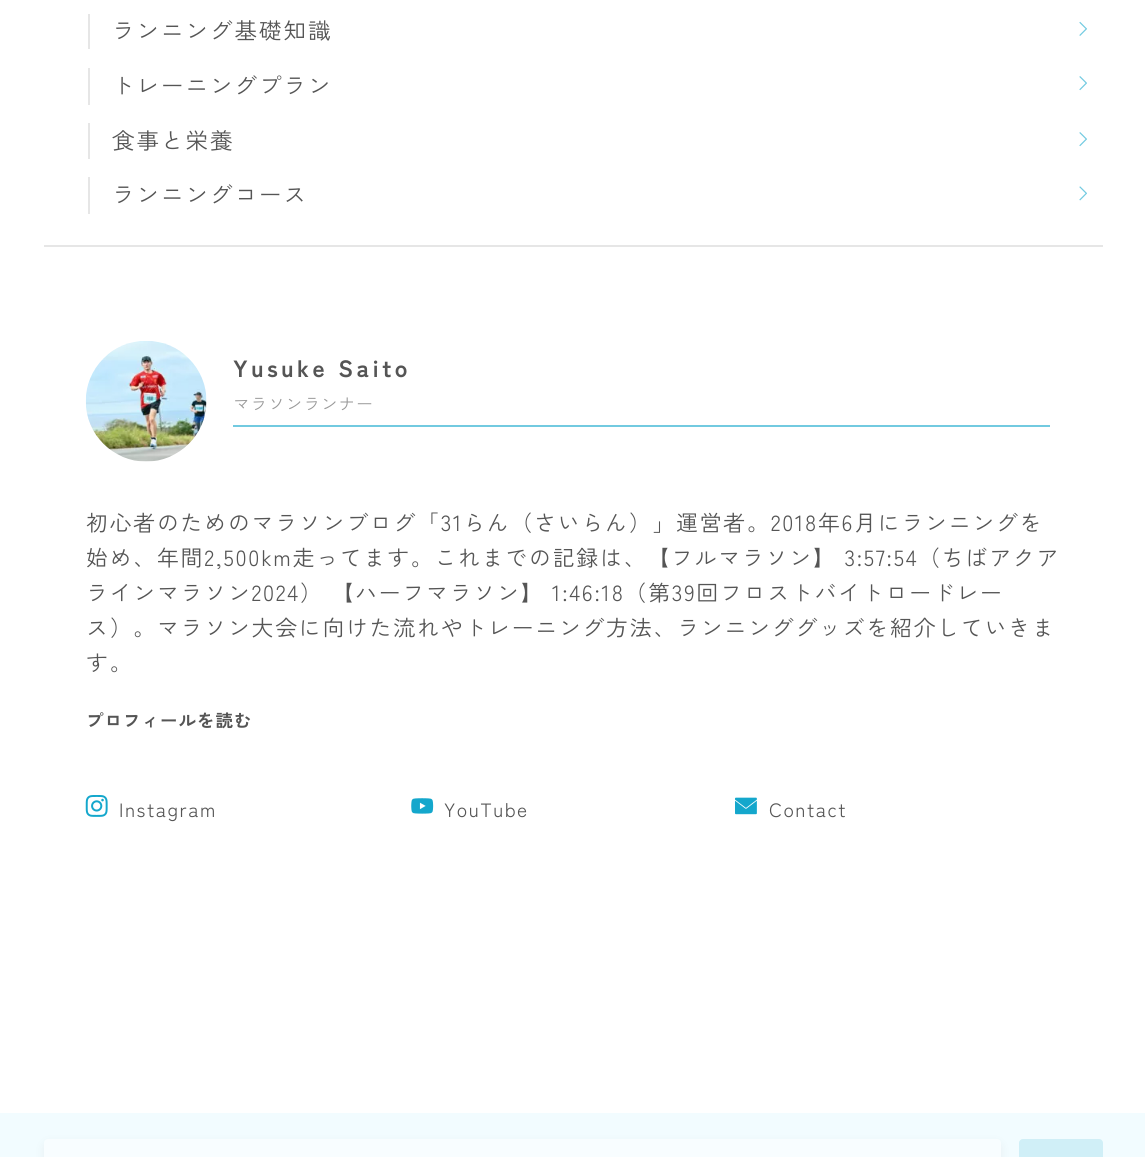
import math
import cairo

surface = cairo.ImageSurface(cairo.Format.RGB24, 1145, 1157)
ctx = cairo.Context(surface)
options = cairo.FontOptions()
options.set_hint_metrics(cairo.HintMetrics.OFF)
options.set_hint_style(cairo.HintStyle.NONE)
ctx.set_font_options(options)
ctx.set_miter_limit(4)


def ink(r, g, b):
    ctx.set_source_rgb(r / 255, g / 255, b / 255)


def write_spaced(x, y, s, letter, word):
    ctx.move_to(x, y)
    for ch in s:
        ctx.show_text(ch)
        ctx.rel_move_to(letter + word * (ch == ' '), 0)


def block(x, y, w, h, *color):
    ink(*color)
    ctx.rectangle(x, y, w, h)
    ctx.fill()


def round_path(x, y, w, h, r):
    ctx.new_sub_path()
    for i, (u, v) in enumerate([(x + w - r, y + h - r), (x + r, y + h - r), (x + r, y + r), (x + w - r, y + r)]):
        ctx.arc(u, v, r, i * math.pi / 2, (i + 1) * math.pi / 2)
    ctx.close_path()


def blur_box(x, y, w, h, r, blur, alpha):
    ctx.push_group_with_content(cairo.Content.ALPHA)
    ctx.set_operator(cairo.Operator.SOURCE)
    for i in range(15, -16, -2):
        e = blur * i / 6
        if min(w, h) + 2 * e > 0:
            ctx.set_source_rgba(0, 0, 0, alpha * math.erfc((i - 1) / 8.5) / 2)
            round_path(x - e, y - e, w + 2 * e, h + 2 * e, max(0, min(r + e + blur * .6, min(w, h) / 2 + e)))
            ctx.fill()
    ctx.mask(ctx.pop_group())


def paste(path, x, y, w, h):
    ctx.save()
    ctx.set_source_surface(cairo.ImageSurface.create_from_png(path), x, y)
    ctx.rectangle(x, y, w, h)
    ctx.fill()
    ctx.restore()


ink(255, 255, 255)
ctx.paint()
block(44, 245, 1059, 2, 230, 230, 230)
block(88, 14, 2, 35, 230, 230, 230)
ctx.select_font_face("Zen Kaku Gothic New")
ctx.set_font_size(22.5)
ink(85, 85, 85)
write_spaced(112, 39, "ランニング基礎知識", 2, 0)
paste("pic1.png", 1079, 21, 8, 15)
block(88, 68, 2, 37, 230, 230, 230)
ink(85, 85, 85)
write_spaced(112, 94, "トレーニングプラン", 2, 0)
paste("pic2.png", 1079, 76, 8, 15)
block(88, 123, 2, 36, 230, 230, 230)
ink(85, 85, 85)
write_spaced(112, 149, "食事と栄養", 2, 0)
paste("pic2.png", 1079, 132, 8, 15)
block(88, 177, 2, 37, 230, 230, 230)
ink(85, 85, 85)
write_spaced(112, 203, "ランニングコース", 2, 0)
paste("pic3.png", 1079, 186, 8, 15)
paste("pic4.png", 85, 341, 122, 121)
ctx.select_font_face("Zen Kaku Gothic New", cairo.FontSlant.NORMAL, cairo.FontWeight.BOLD)
ctx.set_font_size(23.5)
write_spaced(233, 377, "Yusuke Saito", 3.5, 0)
block(233, 425, 817, 2, 114, 202, 224)
ctx.select_font_face("Zen Kaku Gothic New")
ctx.set_font_size(16.6)
ink(153, 153, 153)
write_spaced(233, 410, "マラソンランナー", 1, 0)
ctx.set_font_size(21.9)
ink(85, 85, 85)
write_spaced(86, 531, "初心者のためのマラソンブログ「31らん（さいらん）」運営者。2018年6月にランニングを", 1.75, 0)
write_spaced(86, 566, "始め、年間2,500km走ってます。これまでの記録は、【フルマラソン】 3:57:54（ちばアクア", 1.75, 0)
write_spaced(86, 601, "ラインマラソン2024） 【ハーフマラソン】 1:46:18（第39回フロストバイトロードレー", 1.75, 0)
write_spaced(86, 636, "ス）。マラソン大会に向けた流れやトレーニング方法、ランニンググッズを紹介していきま", 1.75, 0)
write_spaced(86, 671, "す。", 1.75, 0)
ctx.select_font_face("Zen Kaku Gothic New", cairo.FontSlant.NORMAL, cairo.FontWeight.BOLD)
ctx.set_font_size(17.5)
write_spaced(86, 727, "プロフィールを読む", 1, 0)
paste("pic5.png", 85, 795, 23, 22)
ctx.select_font_face("Zen Kaku Gothic New")
ctx.set_font_size(19.25)
write_spaced(119, 817, "Instagram", 1.5, 0)
paste("pic6.png", 411, 798, 23, 16)
write_spaced(444, 817, "YouTube", 1.5, 0)
paste("pic7.png", 735, 797, 22, 18)
write_spaced(769, 817, "Contact", 1.5, 0)
block(0, 1113, 1145, 44, 242, 252, 255)
ink(170, 170, 170)
blur_box(44, 1143, 957, 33, 4, 5, 0.15)
ink(248, 253, 255)
round_path(44, 1139, 957, 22, 4)
ctx.fill()
ctx.set_source_rgba(0.078, 0.655, 0.8, 0.15)
round_path(1019, 1139, 84, 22, 4)
ctx.fill()
surface.write_to_png("screenshot.png")
